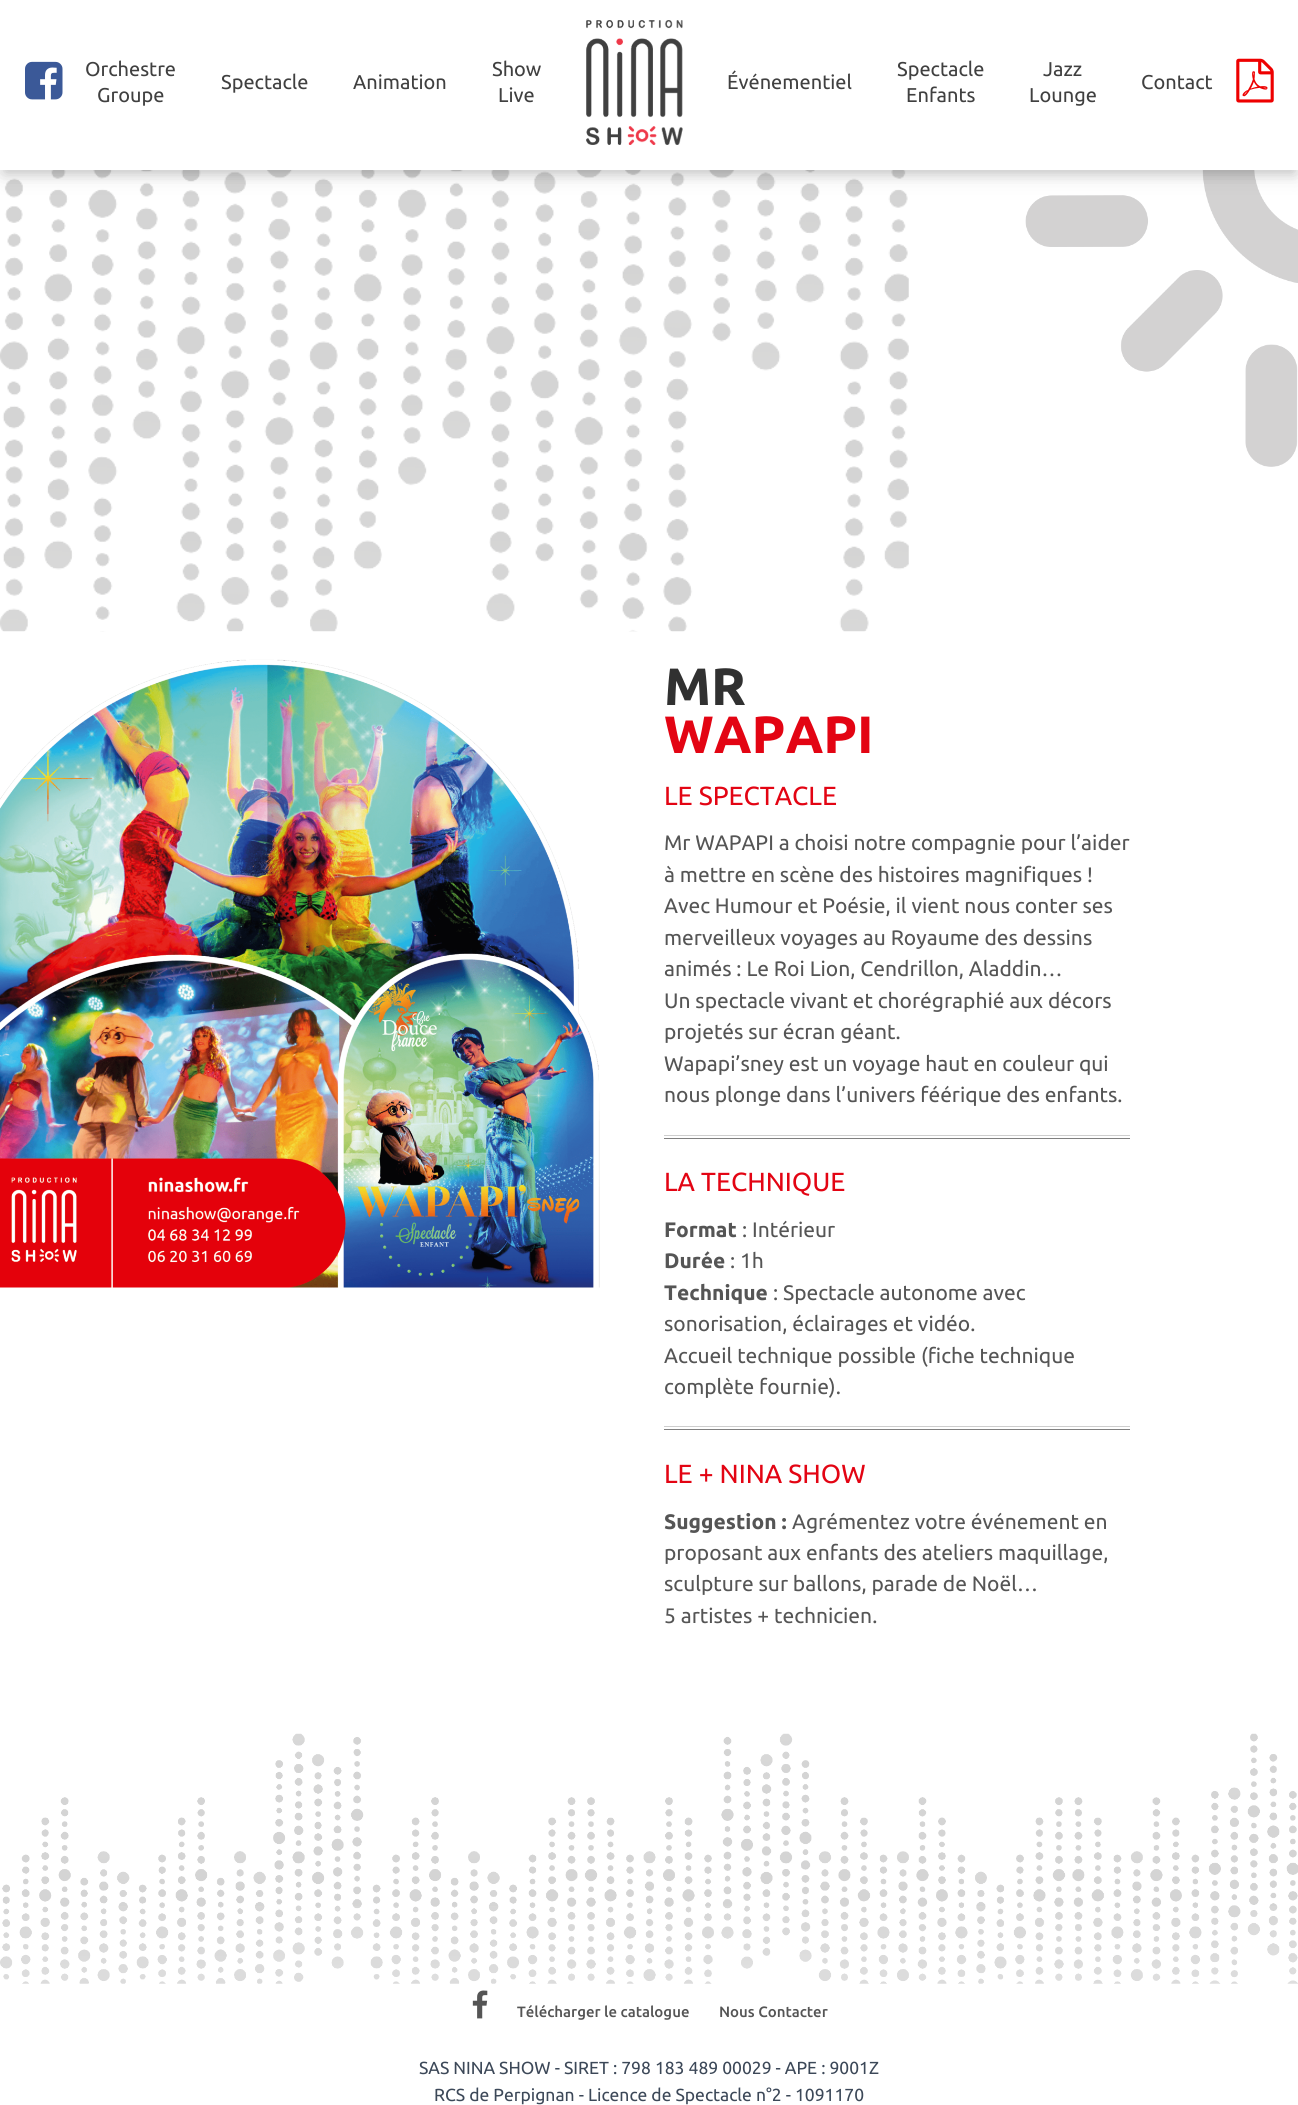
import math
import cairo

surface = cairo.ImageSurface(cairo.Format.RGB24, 1298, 2105)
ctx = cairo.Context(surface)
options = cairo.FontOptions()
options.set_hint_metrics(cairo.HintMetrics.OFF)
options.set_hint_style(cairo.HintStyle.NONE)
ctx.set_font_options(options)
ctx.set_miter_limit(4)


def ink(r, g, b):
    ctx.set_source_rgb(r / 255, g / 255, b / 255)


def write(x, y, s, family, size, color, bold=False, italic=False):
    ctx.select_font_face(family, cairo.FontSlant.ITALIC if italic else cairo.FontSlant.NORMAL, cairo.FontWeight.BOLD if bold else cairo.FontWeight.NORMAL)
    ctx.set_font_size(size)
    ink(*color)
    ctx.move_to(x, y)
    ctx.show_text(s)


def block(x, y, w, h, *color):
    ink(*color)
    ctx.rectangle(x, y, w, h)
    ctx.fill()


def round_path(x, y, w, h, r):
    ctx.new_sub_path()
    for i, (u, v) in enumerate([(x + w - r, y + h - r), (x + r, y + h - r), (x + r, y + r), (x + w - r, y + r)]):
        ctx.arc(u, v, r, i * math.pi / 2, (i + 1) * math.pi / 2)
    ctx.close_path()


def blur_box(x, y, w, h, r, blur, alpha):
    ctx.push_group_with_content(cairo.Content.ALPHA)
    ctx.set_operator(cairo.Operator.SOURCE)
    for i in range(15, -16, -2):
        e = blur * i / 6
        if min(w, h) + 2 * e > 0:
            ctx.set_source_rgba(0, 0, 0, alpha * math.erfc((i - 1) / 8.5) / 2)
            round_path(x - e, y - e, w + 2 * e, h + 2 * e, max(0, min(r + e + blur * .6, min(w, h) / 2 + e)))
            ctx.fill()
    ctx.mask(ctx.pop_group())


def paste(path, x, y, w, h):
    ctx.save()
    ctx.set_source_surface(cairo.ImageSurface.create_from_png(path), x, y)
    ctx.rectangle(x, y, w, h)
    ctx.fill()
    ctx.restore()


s1 = dict(family="Ubuntu", size=20, color=(64, 64, 64))
s2 = dict(family="Ubuntu", size=52.5, color=(49, 49, 49), bold=True)
s3 = dict(family="Ubuntu", size=52.5, color=(227, 4, 19), bold=True)
s4 = dict(family="Ubuntu", size=26.25, color=(227, 4, 19))
s5 = dict(family="Ubuntu", size=21, color=(85, 85, 85))
s6 = dict(family="Ubuntu", size=21, color=(85, 85, 85), bold=True)
s7 = dict(family="Ubuntu Medium", size=15, color=(85, 85, 85))
s8 = dict(family="Ubuntu", size=17.5, color=(60, 72, 88))

ink(255, 255, 255)
ctx.paint()
paste("pic4.png", 0, 170, 909, 462)
paste("pic5.png", 1025, 170, 273, 297)
ink(0, 0, 0)
blur_box(6, 15, 1287, 158, 0, 6, 0.15)
blur_box(0, 5, 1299, 170, 0, 11, 0.12)
block(0, 0, 1298, 170, 255, 255, 255)
paste("pic1.png", 25, 61, 38, 39)
write(85, 76, "Orchestre", **s1)
write(97, 102, "Groupe", **s1)
write(221, 89, "Spectacle", **s1)
write(353, 89, "Animation", **s1)
write(492, 76, "Show", **s1)
write(498, 102, "Live", **s1)
paste("pic2.png", 586, 20, 97, 125)
write(727, 89, "Événementiel", **s1)
write(897, 76, "Spectacle", **s1)
write(906, 102, "Enfants", **s1)
write(1043, 76, "Jazz", **s1)
write(1029, 102, "Lounge", **s1)
write(1141, 89, "Contact", **s1)
paste("pic3.png", 1236, 58, 38, 45)
paste("pic6.png", 0, 659, 600, 629)
write(664, 705, "MR", **s2)
write(664, 753, "WAPAPI", **s3)
write(664, 805, "LE SPECTACLE", **s4)
write(664, 850, "Mr WAPAPI a choisi notre compagnie pour l’aider", **s5)
write(664, 882, "à mettre en scène des histoires magnifiques !", **s5)
write(664, 913, "Avec Humour et Poésie, il vient nous conter ses", **s5)
write(664, 945, "merveilleux voyages au Royaume des dessins", **s5)
write(664, 976, "animés : Le Roi Lion, Cendrillon, Aladdin…", **s5)
write(664, 1008, "Un spectacle vivant et chorégraphié aux décors", **s5)
write(664, 1039, "projetés sur écran géant.", **s5)
write(664, 1071, "Wapapi’sney est un voyage haut en couleur qui", **s5)
write(664, 1102, "nous plonge dans l’univers féérique des enfants.", **s5)
block(664, 1135, 466, 1, 206, 206, 206)
block(664, 1138, 466, 1, 128, 128, 128)
write(664, 1191, "LA TECHNIQUE", **s4)
write(664, 1237, "Format", **s6)
write(742, 1237, ": Intérieur", **s5)
write(664, 1268, "Durée", **s6)
write(730, 1268, ": 1h", **s5)
write(664, 1300, "Technique", **s6)
write(773, 1300, ": Spectacle autonome avec", **s5)
write(664, 1331, "sonorisation, éclairages et vidéo.", **s5)
write(664, 1363, "Accueil technique possible (fiche technique", **s5)
write(664, 1394, "complète fournie).", **s5)
block(664, 1426, 466, 1, 206, 206, 206)
block(664, 1429, 466, 1, 128, 128, 128)
write(664, 1483, "LE + NINA SHOW", **s4)
write(664, 1529, "Suggestion :", **s6)
write(792, 1529, "Agrémentez votre événement en", **s5)
write(664, 1560, "proposant aux enfants des ateliers maquillage,", **s5)
write(664, 1591, "sculpture sur ballons, parade de Noël…", **s5)
write(664, 1623, "5 artistes + technicien.", **s5)
paste("pic7.png", 0, 1733, 1298, 251)
gradient = cairo.LinearGradient(649, 1734, 649, 1984)
gradient.add_color_stop_rgba(0.55, 1, 1, 1, 0)
gradient.add_color_stop_rgba(1, 1, 1, 1, 0.2)
ctx.set_source(gradient)
ctx.rectangle(0, 1906, 1298, 78)
ctx.fill()
paste("pic8.png", 472, 1990, 16, 29)
write(517, 2017, "Télécharger le catalogue", **s7)
write(719, 2017, "Nous Contacter", **s7)
write(419, 2074, "SAS NINA SHOW - SIRET : 798 183 489 00029 - APE : 9001Z", **s8)
write(434, 2101, "RCS de Perpignan - Licence de Spectacle n°2 - 1091170", **s8)
surface.write_to_png("screenshot.png")
